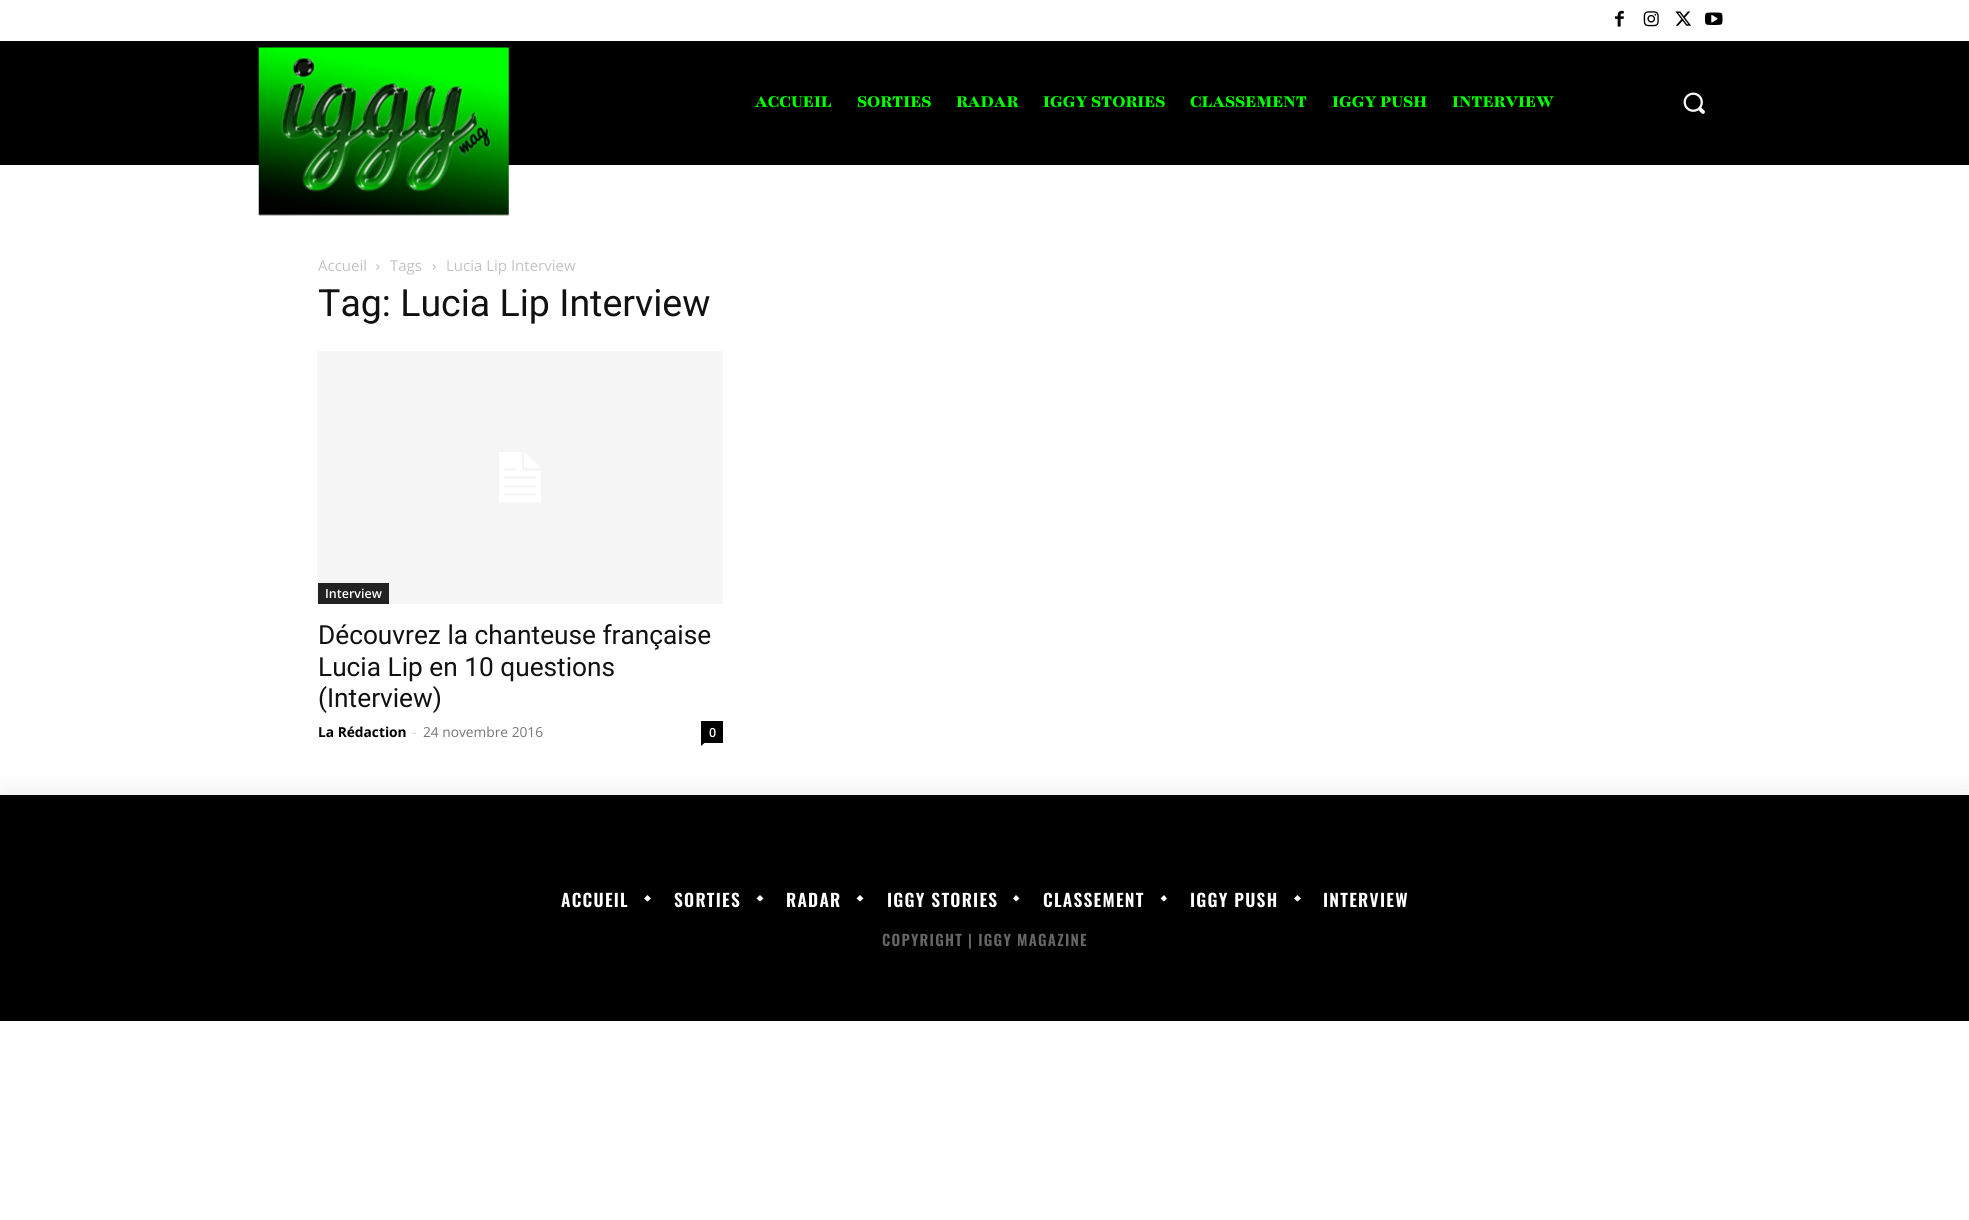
import math
import cairo

surface = cairo.ImageSurface(cairo.Format.RGB24, 1969, 1220)
ctx = cairo.Context(surface)
options = cairo.FontOptions()
options.set_hint_metrics(cairo.HintMetrics.OFF)
options.set_hint_style(cairo.HintStyle.NONE)
ctx.set_font_options(options)
ctx.set_miter_limit(4)


def ink(r, g, b):
    ctx.set_source_rgb(r / 255, g / 255, b / 255)


def write(x, y, s, family, size, color, bold=False, italic=False):
    ctx.select_font_face(family, cairo.FontSlant.ITALIC if italic else cairo.FontSlant.NORMAL, cairo.FontWeight.BOLD if bold else cairo.FontWeight.NORMAL)
    ctx.set_font_size(size)
    ink(*color)
    ctx.move_to(x, y)
    ctx.show_text(s)


def write_spaced(x, y, s, letter, word):
    ctx.move_to(x, y)
    for ch in s:
        ctx.show_text(ch)
        ctx.rel_move_to(letter + word * (ch == ' '), 0)


def block(x, y, w, h, *color):
    ink(*color)
    ctx.rectangle(x, y, w, h)
    ctx.fill()


def round_path(x, y, w, h, r):
    ctx.new_sub_path()
    for i, (u, v) in enumerate([(x + w - r, y + h - r), (x + r, y + h - r), (x + r, y + r), (x + w - r, y + r)]):
        ctx.arc(u, v, r, i * math.pi / 2, (i + 1) * math.pi / 2)
    ctx.close_path()


def blur_box(x, y, w, h, r, blur, alpha):
    ctx.push_group_with_content(cairo.Content.ALPHA)
    ctx.set_operator(cairo.Operator.SOURCE)
    for i in range(15, -16, -2):
        e = blur * i / 6
        if min(w, h) + 2 * e > 0:
            ctx.set_source_rgba(0, 0, 0, alpha * math.erfc((i - 1) / 8.5) / 2)
            round_path(x - e, y - e, w + 2 * e, h + 2 * e, max(0, min(r + e + blur * .6, min(w, h) / 2 + e)))
            ctx.fill()
    ctx.mask(ctx.pop_group())


def paste(path, x, y, w, h):
    ctx.save()
    ctx.set_source_surface(cairo.ImageSurface.create_from_png(path), x, y)
    ctx.rectangle(x, y, w, h)
    ctx.fill()
    ctx.restore()


s1 = dict(family="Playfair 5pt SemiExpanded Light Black", size=18.75, color=(0, 255, 0))
s2 = dict(family="Open Sans", size=15, color=(195, 195, 195))
s3 = dict(family="Roboto", size=37.5, color=(17, 17, 17))
s4 = dict(family="Open Sans SemiBold", size=12.5, color=(255, 255, 255))
s5 = dict(family="Roboto", size=26.25, color=(17, 17, 17))
s6 = dict(family="Open Sans", size=13.75, color=(0, 0, 0), bold=True)
s7 = dict(family="Open Sans", size=13.75, color=(204, 204, 204))
s8 = dict(family="Open Sans", size=13.75, color=(118, 118, 118))

ink(255, 255, 255)
ctx.paint()
paste("pic1.png", 1615, 10, 9, 17)
paste("pic2.png", 1643, 11, 16, 16)
paste("pic3.png", 1675, 11, 16, 15)
paste("pic4.png", 1705, 12, 18, 13)
block(0, 41, 1969, 124, 0, 0, 0)
paste("pic5.png", 258, 47, 251, 169)
write(755, 107, "ACCUEIL", **s1)
write(857, 107, "SORTIES", **s1)
write(956, 107, "RADAR", **s1)
write(1043, 107, "IGGY STORIES", **s1)
write(1190, 107, "CLASSEMENT", **s1)
write(1332, 107, "IGGY PUSH", **s1)
write(1452, 107, "INTERVIEW", **s1)
paste("pic6.png", 1683, 92, 22, 22)
write(318, 271, "Accueil", **s2)
paste("pic7.png", 376, 264, 4, 6)
write(390, 271, "Tags", **s2)
paste("pic8.png", 432, 264, 4, 6)
write(446, 271, "Lucia Lip Interview", **s2)
write(318, 316, "Tag: Lucia Lip Interview", **s3)
paste("pic9.png", 317, 351, 406, 253)
block(318, 583, 71, 21, 34, 34, 34)
write(325, 598, "Interview", **s4)
write(318, 644, "Découvrez la chanteuse française", **s5)
write(318, 676, "Lucia Lip en 10 questions", **s5)
write(318, 707, "(Interview)", **s5)
write(318, 737, "La Rédaction", **s6)
write(412, 737, "-", **s7)
write(423, 737, "24 novembre 2016", **s8)
block(701, 721, 22, 22, 0, 0, 0)
write(709, 737, "0", **s4)
ink(0, 0, 0)
ctx.new_path()
ctx.move_to(701, 742.5)
ctx.line_to(705, 742.5)
ctx.line_to(701, 746)
ctx.close_path()
ctx.fill()
ctx.save()
ctx.rectangle(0, 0, 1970, 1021)
ctx.clip()
ink(0, 0, 0)
blur_box(0, 795, 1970, 226, 0, 12.5, 0.1)
ctx.restore()
block(0, 795, 1969, 226, 0, 0, 0)
ctx.select_font_face("Oswald SemiBold")
ctx.set_font_size(17.5)
ink(255, 255, 255)
write_spaced(561, 907, "ACCUEIL", 1.25, 0)
ctx.new_path()
ctx.move_to(651, 898.5)
ctx.line_to(647.5, 901.5)
ctx.line_to(644, 898.5)
ctx.line_to(647.5, 895)
ctx.close_path()
ctx.fill()
write_spaced(674, 907, "SORTIES", 1.25, 0)
ctx.new_path()
ctx.move_to(763.5, 898.5)
ctx.line_to(760, 901.5)
ctx.line_to(756.5, 898.5)
ctx.line_to(760, 895)
ctx.close_path()
ctx.fill()
write_spaced(786, 907, "RADAR", 1.25, 0)
ctx.new_path()
ctx.move_to(863.5, 898.5)
ctx.line_to(860, 901.5)
ctx.line_to(856.5, 898.5)
ctx.line_to(860, 895)
ctx.close_path()
ctx.fill()
write_spaced(887, 907, "IGGY STORIES", 1.25, 0)
ctx.new_path()
ctx.move_to(1019.5, 898.5)
ctx.line_to(1016, 901.5)
ctx.line_to(1013, 898.5)
ctx.line_to(1016, 895)
ctx.close_path()
ctx.fill()
write_spaced(1043, 907, "CLASSEMENT", 1.25, 0)
ctx.new_path()
ctx.move_to(1167, 898.5)
ctx.line_to(1164, 901.5)
ctx.line_to(1160.5, 898.5)
ctx.line_to(1164, 895)
ctx.close_path()
ctx.fill()
write_spaced(1190, 907, "IGGY PUSH", 1.25, 0)
ctx.new_path()
ctx.move_to(1301, 898.5)
ctx.line_to(1297.5, 901.5)
ctx.line_to(1294, 898.5)
ctx.line_to(1297.5, 895)
ctx.close_path()
ctx.fill()
write_spaced(1323, 907, "INTERVIEW", 1.25, 0)
ctx.set_font_size(15)
ink(102, 102, 102)
write_spaced(882, 946, "COPYRIGHT | IGGY MAGAZINE", 1.25, 0)
surface.write_to_png("screenshot.png")
